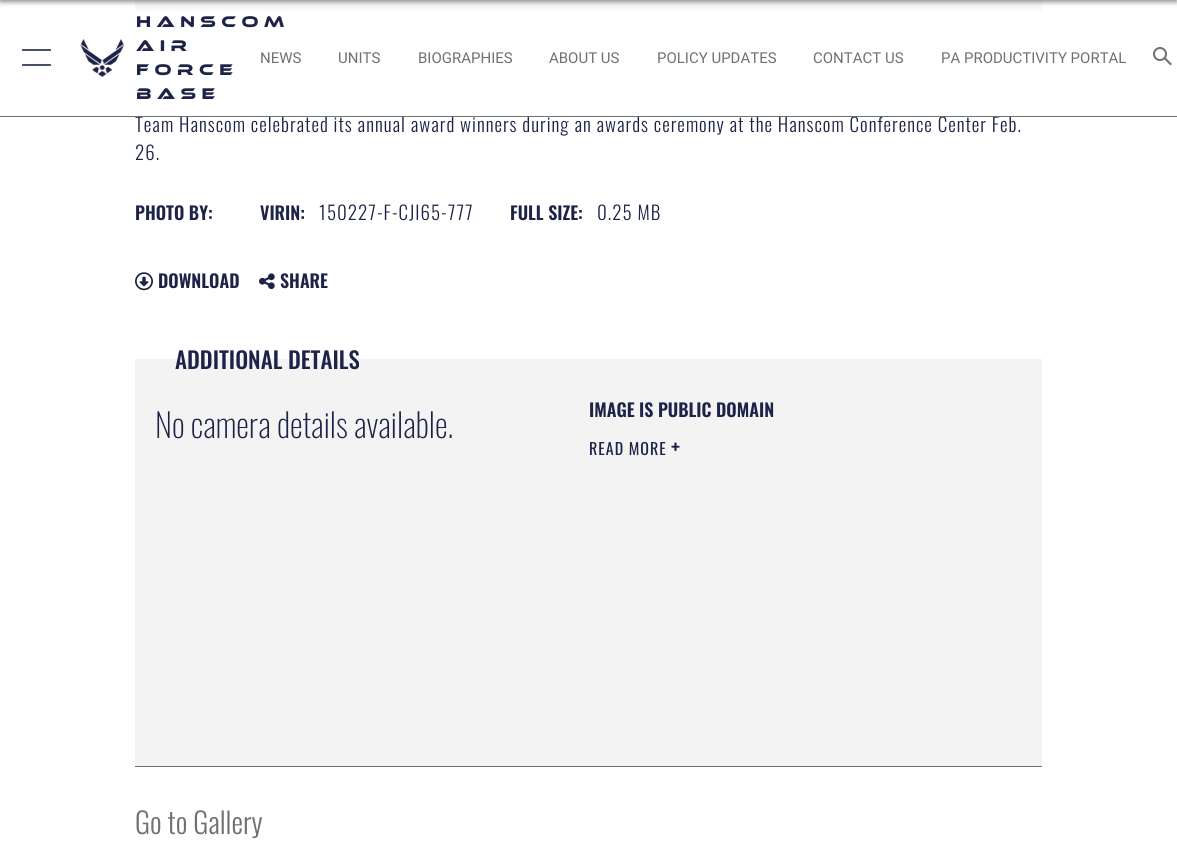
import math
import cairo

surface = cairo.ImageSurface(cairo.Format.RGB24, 1177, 842)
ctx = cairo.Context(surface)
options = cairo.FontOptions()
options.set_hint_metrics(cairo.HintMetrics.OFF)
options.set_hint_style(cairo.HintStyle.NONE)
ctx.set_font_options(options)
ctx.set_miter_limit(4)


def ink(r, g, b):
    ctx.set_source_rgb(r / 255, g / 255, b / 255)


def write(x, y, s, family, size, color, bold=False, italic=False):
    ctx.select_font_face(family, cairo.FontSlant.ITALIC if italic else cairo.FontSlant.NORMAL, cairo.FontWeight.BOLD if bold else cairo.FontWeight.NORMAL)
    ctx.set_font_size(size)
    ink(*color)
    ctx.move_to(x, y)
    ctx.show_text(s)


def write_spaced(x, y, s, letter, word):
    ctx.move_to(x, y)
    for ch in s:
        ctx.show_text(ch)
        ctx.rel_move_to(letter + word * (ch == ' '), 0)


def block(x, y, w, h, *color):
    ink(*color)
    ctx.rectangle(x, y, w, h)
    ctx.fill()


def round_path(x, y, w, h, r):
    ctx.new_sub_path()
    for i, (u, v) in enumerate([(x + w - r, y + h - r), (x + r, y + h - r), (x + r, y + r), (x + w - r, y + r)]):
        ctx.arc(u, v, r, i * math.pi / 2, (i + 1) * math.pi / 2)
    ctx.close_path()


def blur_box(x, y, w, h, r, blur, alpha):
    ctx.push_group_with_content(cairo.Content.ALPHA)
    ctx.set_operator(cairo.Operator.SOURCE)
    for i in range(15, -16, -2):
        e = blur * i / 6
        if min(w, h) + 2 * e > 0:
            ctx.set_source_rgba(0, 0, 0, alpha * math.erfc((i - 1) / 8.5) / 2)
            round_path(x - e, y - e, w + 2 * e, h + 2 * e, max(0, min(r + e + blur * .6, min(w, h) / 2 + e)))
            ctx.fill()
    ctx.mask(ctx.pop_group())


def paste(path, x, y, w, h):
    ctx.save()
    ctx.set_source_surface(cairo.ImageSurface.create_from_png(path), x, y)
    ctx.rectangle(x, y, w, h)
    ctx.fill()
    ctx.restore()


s1 = dict(family="Roboto", size=15, color=(112, 112, 112))
s2 = dict(family="Oswald SemiBold", size=18, color=(28, 35, 71))
s3 = dict(family="Oswald Medium", size=23, color=(28, 35, 71))
s4 = dict(family="Oswald ExtraLight", size=33, color=(28, 35, 71))
s5 = dict(family="Oswald Light", size=29, color=(112, 112, 112))

ink(255, 255, 255)
ctx.paint()
block(135, 0, 907, 11, 101, 106, 130)
ctx.set_source_rgba(1, 1, 1, 0.95)
ctx.rectangle(135, 0, 907, 11)
ctx.fill()
ink(0, 0, 0)
blur_box(0, -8, 1177, 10, 0, 2.5, 0.45)
ctx.select_font_face("Oswald Light")
ctx.set_font_size(19)
ink(28, 35, 71)
write_spaced(135, 132, "Team Hanscom celebrated its annual award winners during an awards ceremony at the Hanscom Conference Center Feb.", 1, 0)
block(0, 116, 1177, 1, 112, 112, 112)
ink(73, 80, 109)
round_path(22, 49, 29, 2, 0.5)
ctx.fill()
round_path(22, 64, 29, 2, 0.5)
ctx.fill()
paste("pic1.png", 80, 39, 45, 38)
ctx.select_font_face("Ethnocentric")
ctx.set_font_size(16)
ink(28, 35, 71)
write_spaced(136, 27, "Hanscom", 5.5, 0)
write_spaced(136, 51, "Air", 5.5, 0)
write_spaced(136, 75, "Force", 5.5, 0)
write_spaced(136, 99, "Base", 5.5, 0)
write(260, 63, "NEWS", **s1)
write(338, 63, "UNITS", **s1)
write(418, 63, "BIOGRAPHIES", **s1)
write(549, 63, "ABOUT US", **s1)
write(657, 63, "POLICY UPDATES", **s1)
write(813, 63, "CONTACT US", **s1)
write(941, 63, "PA PRODUCTIVITY PORTAL", **s1)
ctx.new_path()
ctx.arc(1160, 54, 6, 0, 2 * math.pi)
ctx.stroke()
ctx.new_path()
ctx.move_to(1165, 57)
ctx.line_to(1172, 64)
ctx.line_to(1170.5, 65.5)
ctx.line_to(1163.5, 58.5)
ctx.close_path()
ctx.fill()
ctx.select_font_face("Oswald Light")
ctx.set_font_size(19)
ink(28, 35, 71)
write_spaced(135, 160, "26.", 1, 0)
write(135, 220, "PHOTO BY:", **s2)
write(260, 220, "VIRIN:", **s2)
ctx.select_font_face("Oswald Light")
ctx.set_font_size(19)
write_spaced(319, 220, "150227-F-CJI65-777", 1, 0)
write(510, 220, "FULL SIZE:", **s2)
ctx.select_font_face("Oswald Light")
ctx.set_font_size(19)
write_spaced(597, 220, "0.25 MB", 1, 0)
paste("pic2.png", 135, 272, 18, 19)
write(158, 288, "DOWNLOAD", **s2)
paste("pic3.png", 259, 273, 16, 17)
write(280, 288, "SHARE", **s2)
block(135, 359, 907, 407, 243, 243, 243)
block(135, 766, 907, 1, 112, 112, 112)
write(175, 369, "ADDITIONAL DETAILS", **s3)
write(155, 438, "No camera details available.", **s4)
write(589, 417, "IMAGE IS PUBLIC DOMAIN", **s2)
ctx.select_font_face("Oswald")
ctx.set_font_size(16)
write_spaced(589, 455, "READ MORE", 1, 0)
ctx.select_font_face("Oswald", cairo.FontSlant.NORMAL, cairo.FontWeight.BOLD)
ctx.set_font_size(20)
write_spaced(671, 455, "+", 1, 0)
write(135, 834, "Go to Gallery", **s5)
surface.write_to_png("screenshot.png")
